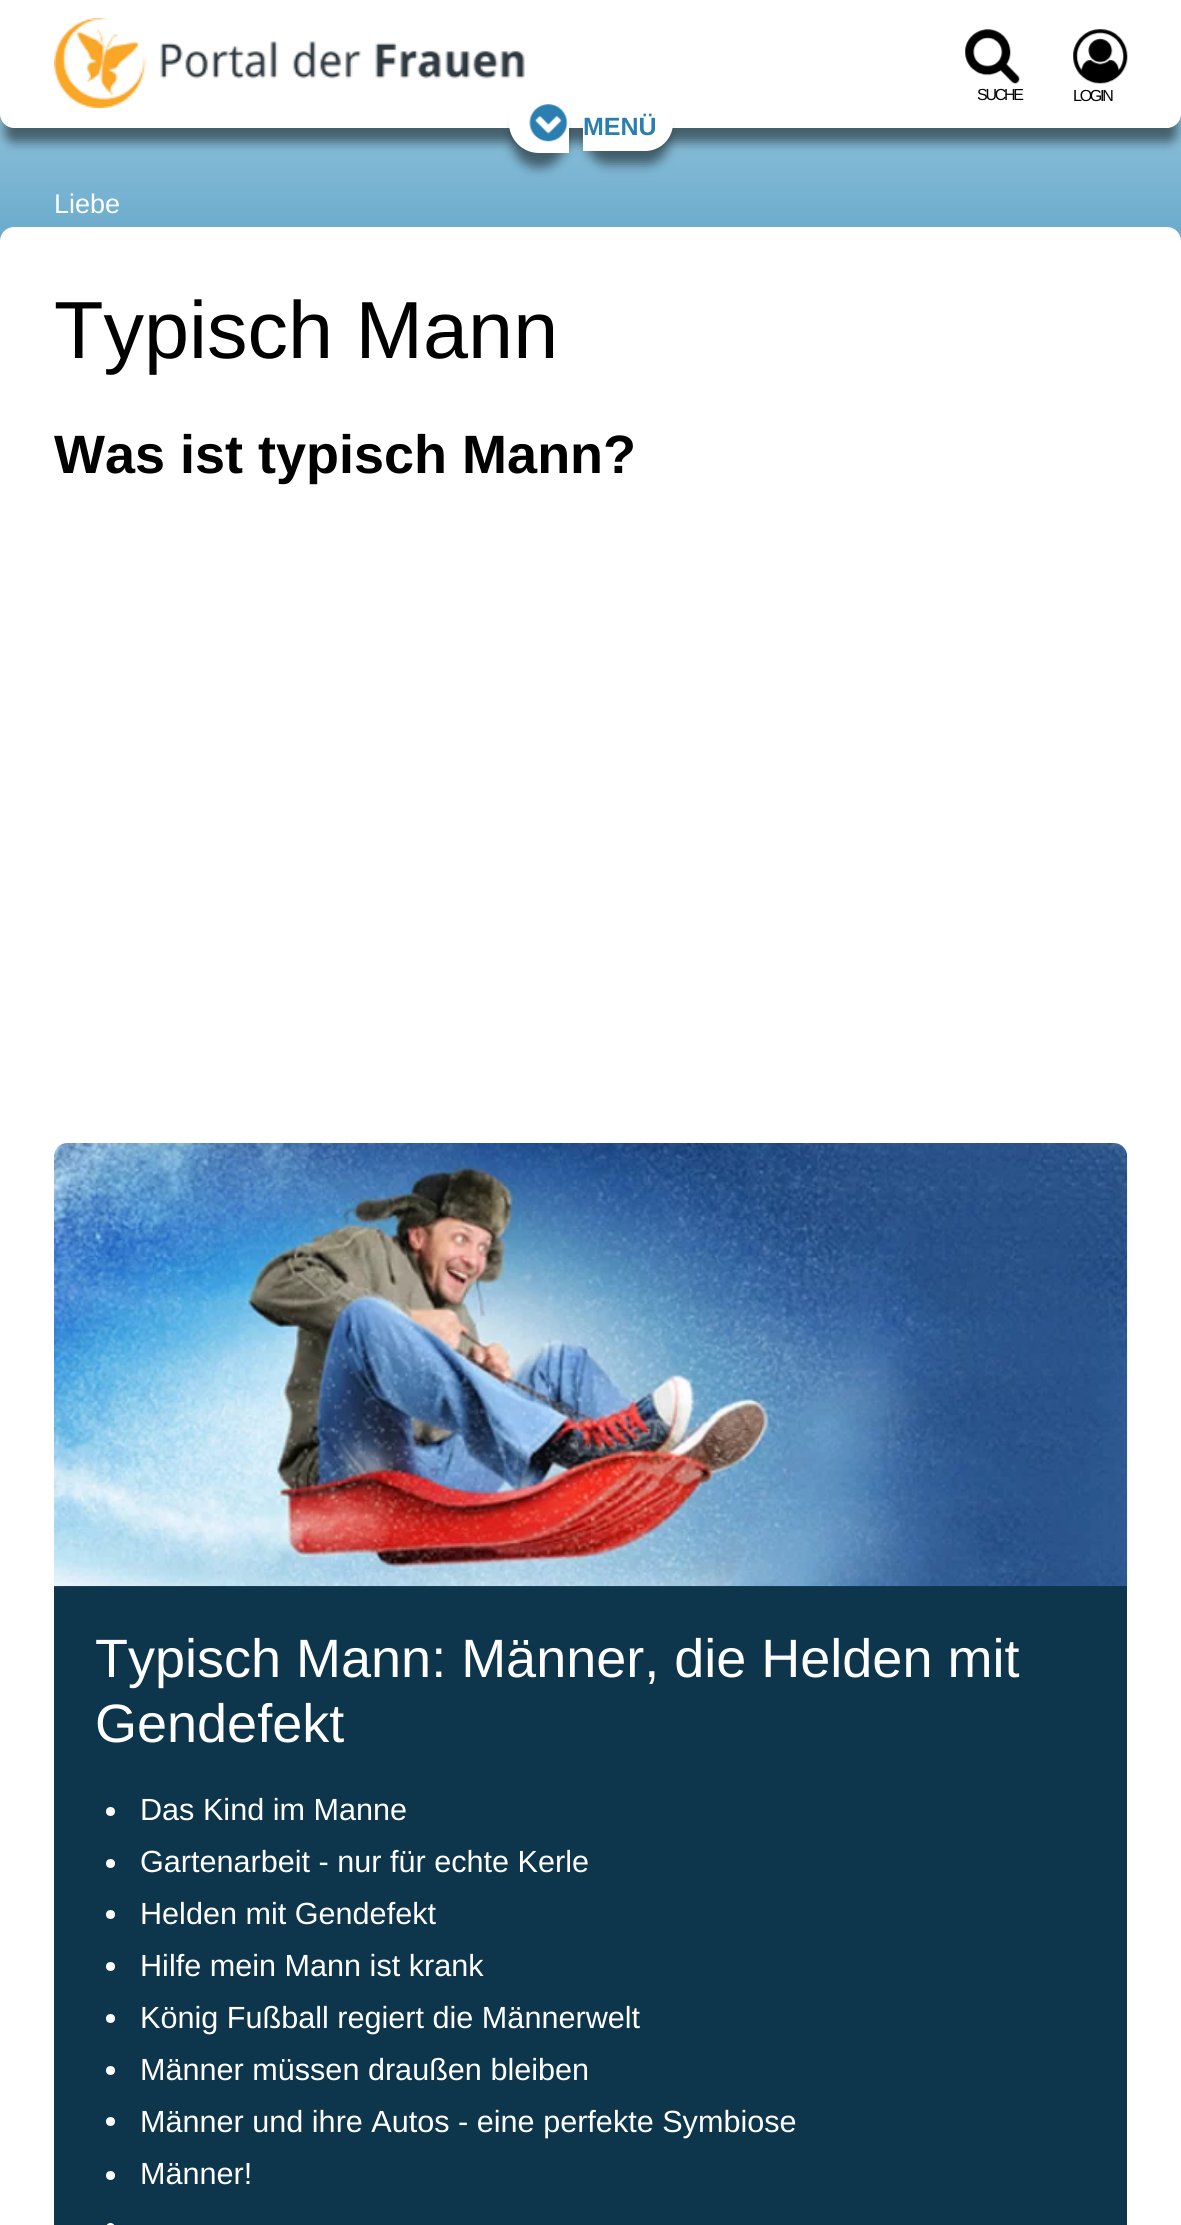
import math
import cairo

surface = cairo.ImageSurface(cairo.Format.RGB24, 1181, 2225)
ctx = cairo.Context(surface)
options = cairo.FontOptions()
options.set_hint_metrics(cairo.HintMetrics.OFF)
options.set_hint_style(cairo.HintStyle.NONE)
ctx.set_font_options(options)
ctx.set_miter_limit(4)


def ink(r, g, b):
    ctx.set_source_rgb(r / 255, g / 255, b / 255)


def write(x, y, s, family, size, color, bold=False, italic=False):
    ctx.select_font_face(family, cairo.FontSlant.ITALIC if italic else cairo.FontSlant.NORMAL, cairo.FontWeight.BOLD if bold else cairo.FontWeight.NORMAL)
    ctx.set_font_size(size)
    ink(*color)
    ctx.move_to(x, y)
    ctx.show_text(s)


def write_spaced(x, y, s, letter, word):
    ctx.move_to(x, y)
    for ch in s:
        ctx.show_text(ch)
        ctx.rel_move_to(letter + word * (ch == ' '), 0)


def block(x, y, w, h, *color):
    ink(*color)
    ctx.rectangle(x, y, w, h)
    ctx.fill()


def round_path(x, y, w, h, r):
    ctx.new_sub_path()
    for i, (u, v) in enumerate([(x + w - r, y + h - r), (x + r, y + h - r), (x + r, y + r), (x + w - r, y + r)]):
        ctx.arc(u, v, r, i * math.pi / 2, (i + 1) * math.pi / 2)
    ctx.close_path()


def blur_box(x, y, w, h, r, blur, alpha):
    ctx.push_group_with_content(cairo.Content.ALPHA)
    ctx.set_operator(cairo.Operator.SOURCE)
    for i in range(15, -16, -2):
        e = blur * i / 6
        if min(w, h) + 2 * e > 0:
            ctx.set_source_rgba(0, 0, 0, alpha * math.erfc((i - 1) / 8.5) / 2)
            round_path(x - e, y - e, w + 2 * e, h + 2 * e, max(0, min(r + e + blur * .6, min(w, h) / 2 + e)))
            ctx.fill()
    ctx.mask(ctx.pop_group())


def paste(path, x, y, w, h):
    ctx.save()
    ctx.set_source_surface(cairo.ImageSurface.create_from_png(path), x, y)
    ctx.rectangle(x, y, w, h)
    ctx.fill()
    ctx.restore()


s1 = dict(family="Liberation Sans", size=25, color=(42, 126, 176), bold=True)
s2 = dict(family="Liberation Sans", size=27, color=(255, 255, 255))
s3 = dict(family="Liberation Sans", size=81, color=(0, 0, 0))
s4 = dict(family="Liberation Sans", size=54, color=(0, 0, 0), bold=True)
s5 = dict(family="Liberation Sans", size=54, color=(255, 255, 255))
s6 = dict(family="Liberation Sans", size=30.6, color=(255, 255, 255))

ink(255, 255, 255)
ctx.paint()
gradient = cairo.LinearGradient(591, 0, 591, 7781)
gradient.add_color_stop_rgba(0, 0.667, 0.831, 0.898, 1)
gradient.add_color_stop_rgba(0.07, 0.098, 0.459, 0.678, 1)
gradient.add_color_stop_rgba(0.29, 0.667, 0.831, 0.898, 1)
gradient.add_color_stop_rgba(1, 0.667, 0.831, 0.898, 1)
ctx.set_source(gradient)
ctx.rectangle(0, 114, 1181, 127)
ctx.fill()
ink(0, 0, 0)
blur_box(5, 23, 1172, 119, 9, 5.5, 0.5)
ink(255, 255, 255)
ctx.new_path()
ctx.move_to(0, 0)
ctx.line_to(1181, 0)
ctx.line_to(1181, 114)
ctx.curve_to(1181, 121.5, 1174.5, 128, 1167, 128)
ctx.line_to(14, 128)
ctx.curve_to(6.5, 128, 0, 121.5, 0, 114)
ctx.close_path()
ctx.fill()
paste("pic1.png", 54, 18, 471, 90)
paste("pic2.png", 965, 29, 55, 55)
ctx.select_font_face("Liberation Sans")
ctx.set_font_size(16)
ink(0, 0, 0)
write_spaced(977, 100, "SUCHE", -2.25, 0)
paste("pic3.png", 1073, 29, 55, 55)
write_spaced(1073, 101, "LOGIN", -2.25, 0)
ink(0, 0, 0)
blur_box(513, 115, 52, 52, 26, 5.5, 0.5)
ink(255, 255, 255)
ctx.new_path()
ctx.move_to(539, 92)
ctx.line_to(569, 92)
ctx.line_to(569, 153)
ctx.line_to(539, 153)
ctx.curve_to(522.5, 153, 509, 139.5, 509, 123)
ctx.line_to(509, 122)
ctx.curve_to(509, 105.5, 522.5, 92, 539, 92)
ctx.close_path()
ctx.fill()
ink(0, 0, 0)
blur_box(587, 117, 81, 47, 23.5, 5.5, 0.5)
ink(255, 255, 255)
ctx.new_path()
ctx.move_to(583, 95)
ctx.line_to(645, 95)
ctx.curve_to(660.5, 95, 673, 107.5, 673, 123)
ctx.curve_to(673, 138.5, 660.5, 151, 645, 151)
ctx.line_to(583, 151)
ctx.close_path()
ctx.fill()
paste("pic4.png", 529, 104, 39, 38)
write(583, 135, "MENÜ", **s1)
write(54, 213, "Liebe", **s2)
round_path(0, 227, 1181, 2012, 14)
ctx.fill()
write(54, 358, "Typisch Mann", **s3)
write(54, 473, "Was ist typisch Mann?", **s4)
block(54, 1586, 1073, 639, 13, 53, 76)
paste("pic5.png", 54, 1143, 1074, 444)
write(95, 1677, "Typisch Mann: Männer, die Helden mit", **s5)
write(95, 1742, "Gendefekt", **s5)
ctx.new_path()
ctx.arc(110.5, 1811.5, 4.5, 0, 2 * math.pi)
ctx.fill()
write(140, 1820, "Das Kind im Manne", **s6)
ctx.new_path()
ctx.arc(110.5, 1863.5, 4.5, 0, 2 * math.pi)
ctx.fill()
write(140, 1872, "Gartenarbeit - nur für echte Kerle", **s6)
ctx.new_path()
ctx.arc(110.5, 1914.5, 4.5, 0, 2 * math.pi)
ctx.fill()
write(140, 1924, "Helden mit Gendefekt", **s6)
ctx.new_path()
ctx.arc(110.5, 1966.5, 4.5, 0, 2 * math.pi)
ctx.fill()
write(140, 1976, "Hilfe mein Mann ist krank", **s6)
ctx.new_path()
ctx.arc(110.5, 2018.5, 4.5, 0, 2 * math.pi)
ctx.fill()
write(140, 2028, "König Fußball regiert die Männerwelt", **s6)
ctx.new_path()
ctx.arc(110.5, 2070.5, 4.5, 0, 2 * math.pi)
ctx.fill()
write(140, 2080, "Männer müssen draußen bleiben", **s6)
ctx.new_path()
ctx.arc(110.5, 2121.5, 4.5, 0, 2 * math.pi)
ctx.fill()
write(140, 2132, "Männer und ihre Autos - eine perfekte Symbiose", **s6)
ctx.new_path()
ctx.arc(110.5, 2175.5, 4.5, 0, 2 * math.pi)
ctx.fill()
write(140, 2184, "Männer!", **s6)
round_path(106, 2223, 9, 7, 4.5)
ctx.fill()
surface.write_to_png("screenshot.png")
